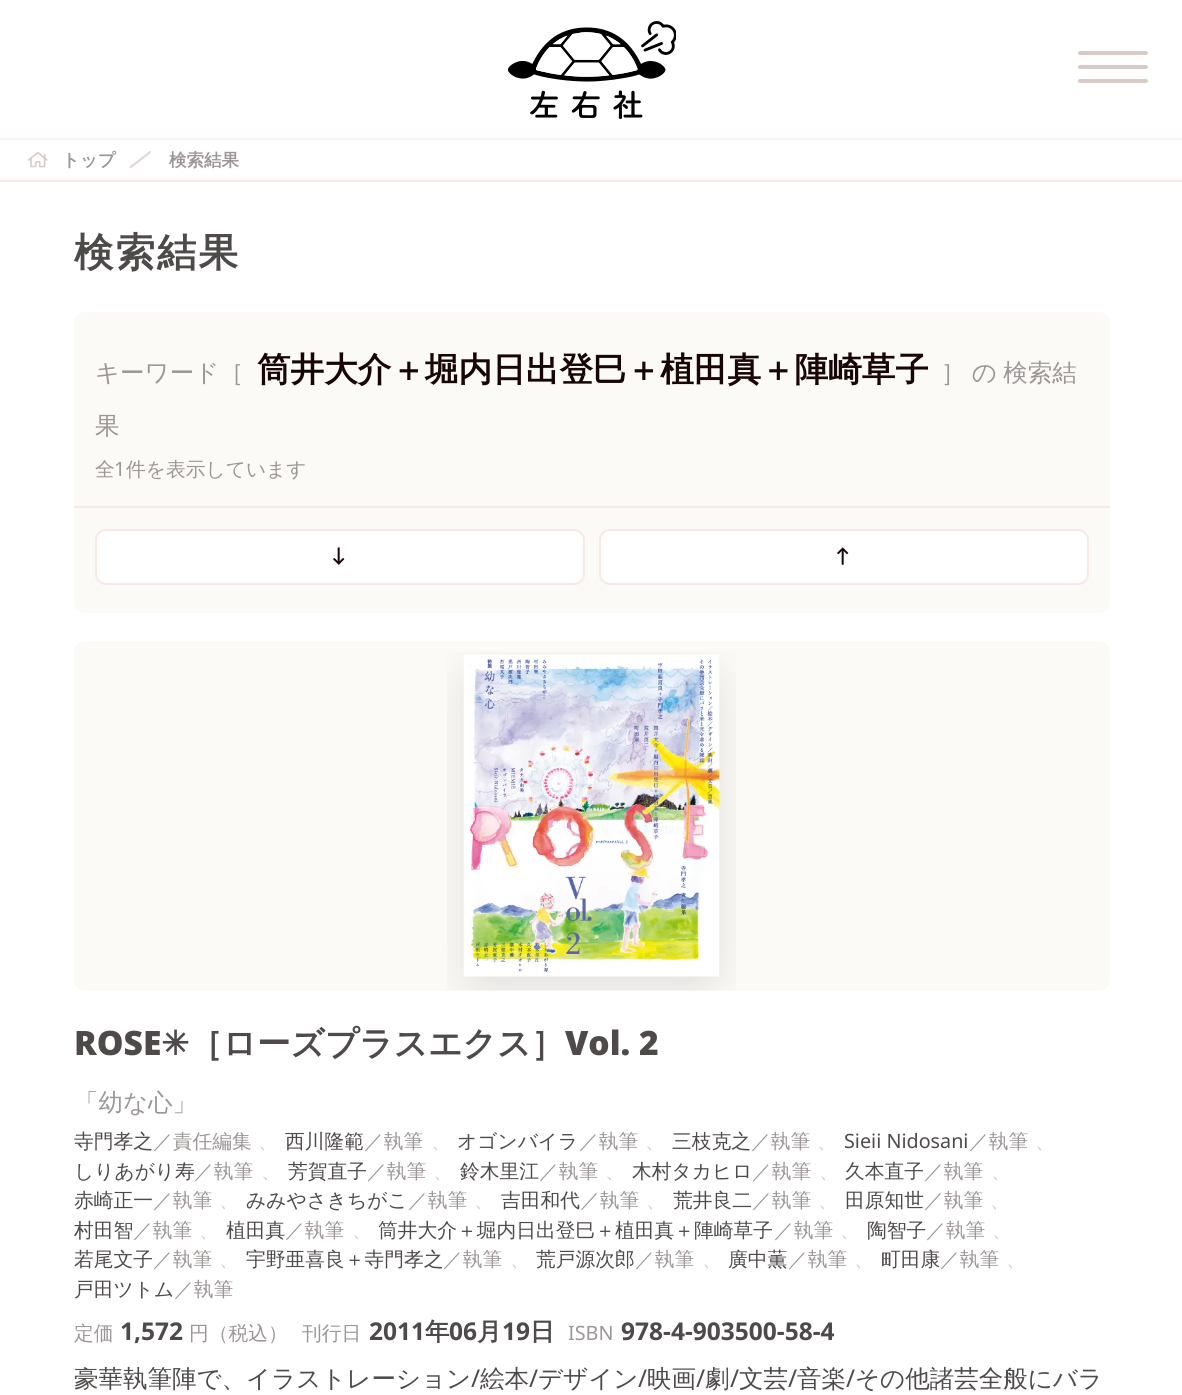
import math
import cairo

surface = cairo.ImageSurface(cairo.Format.RGB24, 1182, 1395)
ctx = cairo.Context(surface)
options = cairo.FontOptions()
options.set_hint_metrics(cairo.HintMetrics.OFF)
options.set_hint_style(cairo.HintStyle.NONE)
ctx.set_font_options(options)
ctx.set_miter_limit(4)


def ink(r, g, b):
    ctx.set_source_rgb(r / 255, g / 255, b / 255)


def write(x, y, s, family, size, color, bold=False, italic=False):
    ctx.select_font_face(family, cairo.FontSlant.ITALIC if italic else cairo.FontSlant.NORMAL, cairo.FontWeight.BOLD if bold else cairo.FontWeight.NORMAL)
    ctx.set_font_size(size)
    ink(*color)
    ctx.move_to(x, y)
    ctx.show_text(s)


def write_spaced(x, y, s, letter, word):
    ctx.move_to(x, y)
    for ch in s:
        ctx.show_text(ch)
        ctx.rel_move_to(letter + word * (ch == ' '), 0)


def block(x, y, w, h, *color):
    ink(*color)
    ctx.rectangle(x, y, w, h)
    ctx.fill()


def round_path(x, y, w, h, r):
    ctx.new_sub_path()
    for i, (u, v) in enumerate([(x + w - r, y + h - r), (x + r, y + h - r), (x + r, y + r), (x + w - r, y + r)]):
        ctx.arc(u, v, r, i * math.pi / 2, (i + 1) * math.pi / 2)
    ctx.close_path()


def paste(path, x, y, w, h):
    ctx.save()
    ctx.set_source_surface(cairo.ImageSurface.create_from_png(path), x, y)
    ctx.rectangle(x, y, w, h)
    ctx.fill()
    ctx.restore()


s1 = dict(family="WenQuanYi Zen Hei", size=17.5, color=(156, 150, 150), bold=True)
s2 = dict(family="WenQuanYi Zen Hei Medium", size=24.5, color=(156, 150, 150))
s3 = dict(family="WenQuanYi Zen Hei", size=33.6, color=(24, 6, 6), bold=True)
s4 = dict(family="WenQuanYi Zen Hei Medium", size=19.75, color=(156, 150, 150))
s5 = dict(family="Noto Sans", size=19.75, color=(156, 150, 150))
s6 = dict(family="Noto Sans Black", size=33.6, color=(79, 74, 74))
s7 = dict(family="DejaVu Sans", size=33.6, color=(79, 74, 74), bold=True)
s8 = dict(family="WenQuanYi Zen Hei", size=33.6, color=(79, 74, 74), bold=True)
s9 = dict(family="WenQuanYi Zen Hei Medium", size=19.75, color=(79, 74, 74))
s10 = dict(family="WenQuanYi Zen Hei Medium", size=19.75, color=(214, 203, 199))
s11 = dict(family="Noto Sans", size=19.75, color=(79, 74, 74))
s12 = dict(family="Noto Sans", size=24.5, color=(79, 74, 74), bold=True)
s13 = dict(family="WenQuanYi Zen Hei", size=24.5, color=(79, 74, 74), bold=True)
s14 = dict(family="WenQuanYi Zen Hei Medium", size=24.5, color=(79, 74, 74))
s15 = dict(family="Noto Sans", size=24.5, color=(79, 74, 74))

ink(255, 255, 255)
ctx.paint()
block(0, 138, 1182, 2, 250, 242, 239)
paste("pic1.png", 508, 21, 168, 98)
ink(214, 203, 199)
round_path(1078, 65, 70, 4, 2)
ctx.fill()
round_path(1078, 51, 70, 4, 2)
ctx.fill()
round_path(1078, 79, 70, 4, 2)
ctx.fill()
block(0, 180, 1182, 2, 247, 233, 227)
paste("pic2.png", 28, 152, 20, 16)
write(62, 166, "トップ", **s1)
paste("pic3.png", 129, 151, 22, 18)
write(169, 166, "検索結果", **s1)
ctx.set_font_size(39.5)
ink(79, 74, 74)
write_spaced(74, 266, "検索結果", 2, 0)
ink(252, 250, 247)
ctx.new_path()
ctx.move_to(85, 312)
ctx.line_to(1099, 312)
ctx.curve_to(1105, 312, 1110, 317, 1110, 323)
ctx.line_to(1110, 506)
ctx.line_to(74, 506)
ctx.line_to(74, 323)
ctx.curve_to(74, 317, 79, 312, 85, 312)
ctx.close_path()
ctx.fill()
write(95, 381, "キーワード［", **s2)
write(257, 381, "筒井大介＋堀内日出登巳＋植田真＋陣崎草子", **s3)
ctx.select_font_face("WenQuanYi Zen Hei Medium")
ctx.set_font_size(24.5)
ink(156, 150, 150)
write_spaced(941, 381, "］ の 検索結", 0, -1)
write(95, 434, "果", **s2)
write(95, 476, "全", **s4)
write(114, 476, "1", **s5)
write(126, 476, "件を表示しています", **s4)
ink(252, 250, 247)
ctx.new_path()
ctx.move_to(74, 506)
ctx.line_to(1110, 506)
ctx.line_to(1110, 602)
ctx.curve_to(1110, 608, 1105, 613, 1099, 613)
ctx.line_to(85, 613)
ctx.curve_to(79, 613, 74, 608, 74, 602)
ctx.close_path()
ctx.fill()
block(74, 506, 1036, 2, 247, 233, 227)
ink(255, 255, 255)
round_path(96, 530, 488, 54, 10)
ctx.fill_preserve()
ink(247, 233, 227)
ctx.stroke()
paste("pic4.png", 333, 547, 12, 18)
ink(255, 255, 255)
round_path(600, 530, 488, 54, 10)
ctx.fill_preserve()
ink(247, 233, 227)
ctx.stroke()
paste("pic5.png", 837, 547, 12, 18)
ink(252, 250, 247)
round_path(74, 641, 1036, 350, 11)
ctx.fill()
paste("pic6.png", 447, 652, 289, 339)
write(74, 1055, "ROSE", **s6)
write(161, 1055, "✳", **s7)
write(189, 1055, "［ローズプラスエクス］", **s8)
write(565, 1055, "Vol. 2", **s6)
write(74, 1111, "「幼な心」", **s2)
write(74, 1148, "寺門孝之", **s9)
write(153, 1148, "／責任編集", **s4)
write(258, 1148, "、", **s10)
write(285, 1148, "西川隆範", **s9)
write(364, 1148, "／執筆", **s4)
write(431, 1148, "、", **s10)
write(457, 1148, "オゴンバイラ", **s9)
write(579, 1148, "／執筆", **s4)
write(645, 1148, "、", **s10)
write(672, 1148, "三枝克之", **s9)
write(751, 1148, "／執筆", **s4)
write(817, 1148, "、", **s10)
write(844, 1148, "Sieii Nidosani", **s11)
write(969, 1148, "／執筆", **s4)
write(1035, 1148, "、", **s10)
write(74, 1178, "しりあがり寿", **s9)
write(194, 1178, "／執筆", **s4)
write(261, 1178, "、", **s10)
write(288, 1178, "芳賀直子", **s9)
write(367, 1178, "／執筆", **s4)
write(433, 1178, "、", **s10)
write(460, 1178, "鈴木里江", **s9)
write(539, 1178, "／執筆", **s4)
write(605, 1178, "、", **s10)
write(632, 1178, "木村タカヒロ", **s9)
write(752, 1178, "／執筆", **s4)
write(819, 1178, "、", **s10)
write(845, 1178, "久本直子", **s9)
write(924, 1178, "／執筆", **s4)
write(991, 1178, "、", **s10)
write(74, 1207, "赤崎正一", **s9)
write(153, 1207, "／執筆", **s4)
write(219, 1207, "、", **s10)
write(246, 1207, "みみやさきちがこ", **s9)
write(408, 1207, "／執筆", **s4)
write(474, 1207, "、", **s10)
write(501, 1207, "吉田和代", **s9)
write(580, 1207, "／執筆", **s4)
write(646, 1207, "、", **s10)
write(673, 1207, "荒井良二", **s9)
write(752, 1207, "／執筆", **s4)
write(818, 1207, "、", **s10)
write(845, 1207, "田原知世", **s9)
write(924, 1207, "／執筆", **s4)
write(990, 1207, "、", **s10)
write(74, 1237, "村田智", **s9)
write(133, 1237, "／執筆", **s4)
write(199, 1237, "、", **s10)
write(226, 1237, "植田真", **s9)
write(285, 1237, "／執筆", **s4)
write(352, 1237, "、", **s10)
write(378, 1237, "筒井大介＋堀内日出登巳＋植田真＋陣崎草子", **s9)
write(774, 1237, "／執筆", **s4)
write(840, 1237, "、", **s10)
write(867, 1237, "陶智子", **s9)
write(926, 1237, "／執筆", **s4)
write(992, 1237, "、", **s10)
write(74, 1266, "若尾文子", **s9)
write(153, 1266, "／執筆", **s4)
write(219, 1266, "、", **s10)
write(246, 1266, "宇野亜喜良＋寺門孝之", **s9)
write(443, 1266, "／執筆", **s4)
write(510, 1266, "、", **s10)
write(536, 1266, "荒戸源次郎", **s9)
write(635, 1266, "／執筆", **s4)
write(702, 1266, "、", **s10)
write(728, 1266, "廣中薫", **s9)
write(788, 1266, "／執筆", **s4)
write(854, 1266, "、", **s10)
write(881, 1266, "町田康", **s9)
write(940, 1266, "／執筆", **s4)
write(1006, 1266, "、", **s10)
write(74, 1296, "戸田ツトム", **s9)
write(174, 1296, "／執筆", **s4)
write(74, 1340, "定価", **s4)
write(120, 1340, "1,572", **s12)
write(189, 1340, "円（税込）", **s4)
write(302, 1340, "刊行日", **s4)
write(369, 1340, "2011", **s12)
write(425, 1340, "年", **s13)
write(449, 1340, "06", **s12)
write(477, 1340, "月", **s13)
write(502, 1340, "19", **s12)
write(530, 1340, "日", **s13)
write(568, 1340, "ISBN", **s5)
write(621, 1340, "978-4-903500-58-4", **s12)
write(74, 1387, "豪華執筆陣で、イラストレーション", **s14)
write(471, 1387, "/", **s15)
write(480, 1387, "絵本", **s14)
write(529, 1387, "/", **s15)
write(538, 1387, "デザイン", **s14)
write(638, 1387, "/", **s15)
write(647, 1387, "映画", **s14)
write(696, 1387, "/", **s15)
write(705, 1387, "劇", **s14)
write(730, 1387, "/", **s15)
write(739, 1387, "文芸", **s14)
write(788, 1387, "/", **s15)
write(797, 1387, "音楽", **s14)
write(846, 1387, "/", **s15)
write(855, 1387, "その他諸芸全般にバラ", **s14)
surface.write_to_png("screenshot.png")
